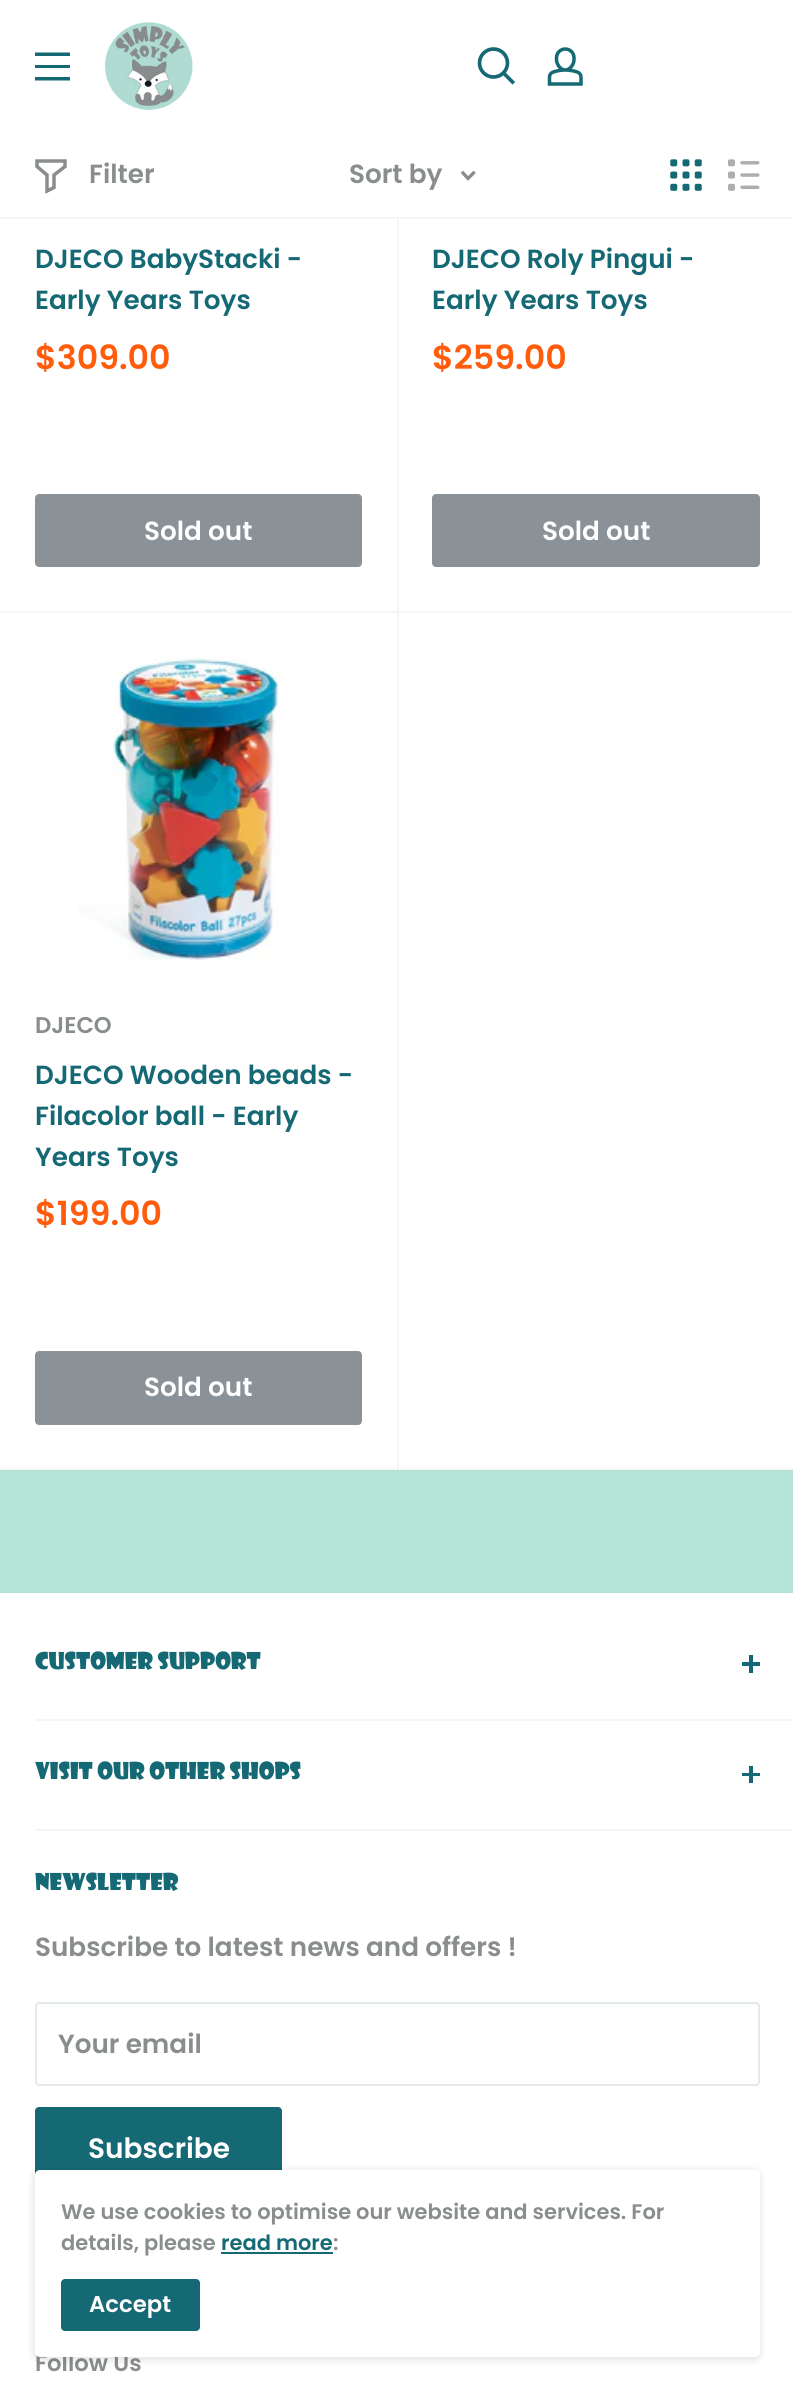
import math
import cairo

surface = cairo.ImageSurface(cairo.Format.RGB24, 793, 2391)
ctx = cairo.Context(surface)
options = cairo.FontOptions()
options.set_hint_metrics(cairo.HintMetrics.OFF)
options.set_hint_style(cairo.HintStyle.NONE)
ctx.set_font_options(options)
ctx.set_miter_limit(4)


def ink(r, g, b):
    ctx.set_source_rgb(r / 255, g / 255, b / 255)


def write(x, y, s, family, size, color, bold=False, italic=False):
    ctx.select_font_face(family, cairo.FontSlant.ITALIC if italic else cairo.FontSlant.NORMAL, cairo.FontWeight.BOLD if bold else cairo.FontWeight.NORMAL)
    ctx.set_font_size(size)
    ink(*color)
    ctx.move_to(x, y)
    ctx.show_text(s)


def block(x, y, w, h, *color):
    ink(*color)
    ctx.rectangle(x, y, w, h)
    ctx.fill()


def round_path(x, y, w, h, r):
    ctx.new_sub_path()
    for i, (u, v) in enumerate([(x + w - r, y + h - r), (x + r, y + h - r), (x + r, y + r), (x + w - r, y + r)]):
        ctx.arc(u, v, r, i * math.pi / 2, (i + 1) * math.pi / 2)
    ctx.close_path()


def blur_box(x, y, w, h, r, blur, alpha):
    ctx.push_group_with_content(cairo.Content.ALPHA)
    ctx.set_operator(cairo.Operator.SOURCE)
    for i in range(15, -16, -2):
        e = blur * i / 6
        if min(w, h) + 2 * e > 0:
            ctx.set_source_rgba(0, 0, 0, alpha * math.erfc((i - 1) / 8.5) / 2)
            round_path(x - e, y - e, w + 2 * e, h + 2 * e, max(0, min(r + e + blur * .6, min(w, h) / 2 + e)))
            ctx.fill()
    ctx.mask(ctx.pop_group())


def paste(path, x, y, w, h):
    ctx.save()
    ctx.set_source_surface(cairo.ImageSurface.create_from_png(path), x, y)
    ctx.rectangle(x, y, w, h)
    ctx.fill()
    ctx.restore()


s1 = dict(family="Poppins SemiBold", size=26.25, color=(137, 141, 141))
s2 = dict(family="Poppins SemiBold", size=26.25, color=(21, 105, 116))
s3 = dict(family="Poppins SemiBold", size=33.25, color=(255, 92, 12))
s4 = dict(family="Poppins SemiBold", size=26.25, color=(255, 255, 255))
s5 = dict(family="Poppins SemiBold", size=22.75, color=(137, 141, 141))
s6 = dict(family="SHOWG", size=22.75, color=(21, 105, 116))
s7 = dict(family="Poppins SemiBold", size=28, color=(255, 255, 255))
s8 = dict(family="Poppins SemiBold", size=21, color=(137, 141, 141))
s9 = dict(family="Poppins SemiBold", size=21, color=(21, 105, 116))
s10 = dict(family="Poppins SemiBold", size=22.75, color=(255, 255, 255))

ink(181, 227, 216)
ctx.paint()
block(0, 219, 793, 1249, 255, 255, 255)
ink(243, 245, 246)
ctx.new_path()
ctx.move_to(2, -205)
ctx.line_to(397, -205)
ctx.line_to(397, 611)
ctx.line_to(2, 611)
ctx.line_to(399, 611)
ctx.line_to(399, -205)
ctx.close_path()
ctx.fill()
block(0, 0, 793, 217, 255, 255, 255)
ink(21, 105, 116)
ctx.set_fill_rule(cairo.FillRule.EVEN_ODD)
ctx.new_path()
ctx.move_to(35, 77)
ctx.line_to(70, 77)
ctx.line_to(70, 80.5)
ctx.line_to(35, 80.5)
ctx.close_path()
ctx.move_to(35, 52.5)
ctx.line_to(70, 52.5)
ctx.line_to(70, 56)
ctx.line_to(35, 56)
ctx.close_path()
ctx.move_to(35, 65)
ctx.line_to(70, 65)
ctx.line_to(70, 68)
ctx.line_to(35, 68)
ctx.close_path()
ctx.fill()
paste("pic1.png", 105, 22, 88, 88)
ctx.new_path()
ctx.move_to(512.5, 82)
ctx.line_to(503.5, 73)
ctx.set_line_width(3.7)
ctx.set_line_cap(cairo.LineCap.SQUARE)
ctx.stroke()
ctx.arc(493.5, 63, 14, 0, 2 * math.pi)
ctx.set_line_cap(cairo.LineCap.BUTT)
ctx.stroke()
paste("pic2.png", 547, 47, 36, 39)
block(0, 1468, 793, 2, 243, 245, 246)
ctx.set_fill_rule(cairo.FillRule.WINDING)
ctx.new_path()
ctx.move_to(0, 217)
ctx.line_to(0, 219)
ctx.line_to(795, 219)
ctx.line_to(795, 135)
ctx.line_to(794, 135)
ctx.line_to(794, 217)
ctx.close_path()
ctx.fill()
ctx.new_path()
ctx.move_to(65, 166.5)
ctx.line_to(54, 175)
ctx.line_to(54, 187.5)
ctx.line_to(47, 191)
ctx.line_to(47, 175)
ctx.line_to(37, 166.5)
ctx.line_to(37, 161)
ctx.line_to(65, 161)
ctx.close_path()
ink(137, 141, 141)
ctx.set_line_width(3.5)
ctx.set_line_cap(cairo.LineCap.SQUARE)
ctx.stroke()
write(89, 183, "Filter", **s1)
write(349, 183, "Sort by", **s1)
ctx.new_path()
ctx.move_to(473.5, 173)
ctx.line_to(468, 178.5)
ctx.line_to(463, 173)
ctx.set_line_width(3.3)
ctx.stroke()
paste("pic3.png", 670, 159, 32, 32)
paste("pic4.png", 728, 159, 32, 32)
block(0, 611, 397, 2, 243, 245, 246)
write(35, 268, "DJECO BabyStacki -", **s2)
write(35, 309, "Early Years Toys", **s2)
write(35, 369, "$309.00", **s3)
ink(138, 146, 151)
round_path(36, 495, 325, 71, 3)
ctx.fill_preserve()
ctx.set_line_width(2)
ctx.set_line_cap(cairo.LineCap.BUTT)
ctx.stroke()
write(144, 540, "Sold out", **s4)
write(432, 268, "DJECO Roly Pingui -", **s2)
write(432, 309, "Early Years Toys", **s2)
write(432, 369, "$259.00", **s3)
ink(138, 146, 151)
round_path(433, 495, 326, 71, 3)
ctx.fill_preserve()
ctx.stroke()
write(542, 540, "Sold out", **s4)
ink(243, 245, 246)
ctx.new_path()
ctx.move_to(397, -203)
ctx.line_to(397, 613)
ctx.line_to(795, 613)
ctx.line_to(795, -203)
ctx.line_to(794, -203)
ctx.line_to(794, 611)
ctx.line_to(397, 611)
ctx.close_path()
ctx.fill()
paste("pic5.png", 78, 657, 203, 303)
block(397, 611, 2, 857, 243, 245, 246)
write(35, 1033, "DJECO", **s5)
write(35, 1084, "DJECO Wooden beads -", **s2)
write(35, 1125, "Filacolor ball - Early", **s2)
write(35, 1166, "Years Toys", **s2)
write(35, 1225, "$199.00", **s3)
ink(138, 146, 151)
round_path(36, 1352, 325, 72, 3)
ctx.fill_preserve()
ctx.stroke()
write(144, 1396, "Sold out", **s4)
block(0, 1593, 793, 798, 255, 255, 255)
block(35, 1719, 758, 2, 243, 245, 246)
write(35, 1669, "CUSTOMER SUPPORT", **s6)
block(749, 1655, 4, 18, 21, 105, 116)
block(742, 1662, 18, 4, 21, 105, 116)
block(35, 1829, 758, 2, 243, 245, 246)
write(35, 1779, "VISIT OUR OTHER SHOPS", **s6)
block(749, 1766, 4, 17, 21, 105, 116)
block(742, 1773, 18, 3, 21, 105, 116)
write(35, 1890, "NEWSLETTER", **s6)
write(35, 1956, "Subscribe to latest news and offers !", **s1)
ink(252, 253, 253)
ctx.new_path()
ctx.move_to(38, 2006)
ctx.line_to(756, 2006)
ctx.curve_to(757, 2006, 758, 2006, 758, 2007)
ctx.curve_to(758, 2006, 758, 2004, 756, 2004)
ctx.line_to(39, 2004)
ctx.curve_to(37, 2004, 37, 2006, 37, 2007)
ctx.close_path()
ctx.fill()
round_path(36, 2003, 723, 82, 3)
ink(228, 233, 235)
ctx.stroke()
write(58, 2053, "Your email", **s1)
ink(21, 105, 116)
round_path(35, 2107, 247, 84, 4)
ctx.fill()
write(88, 2158, "Subscribe", **s7)
write(35, 2371, "Follow Us", **s5)
ink(0, 0, 0)
blur_box(33, 2170, 728, 191, 7, 3.5, 0.1)
ink(255, 255, 255)
round_path(35, 2170, 725, 187, 5)
ctx.fill()
write(61, 2219, "We use cookies to optimise our website and services. For", **s8)
write(61, 2250, "details, please", **s8)
write(221, 2250, "read more", **s9)
block(221, 2252, 112, 2, 21, 105, 116)
write(333, 2250, ":", **s8)
ink(21, 105, 116)
round_path(61, 2279, 139, 52, 4)
ctx.fill()
write(89, 2312, "Accept", **s10)
surface.write_to_png("screenshot.png")
